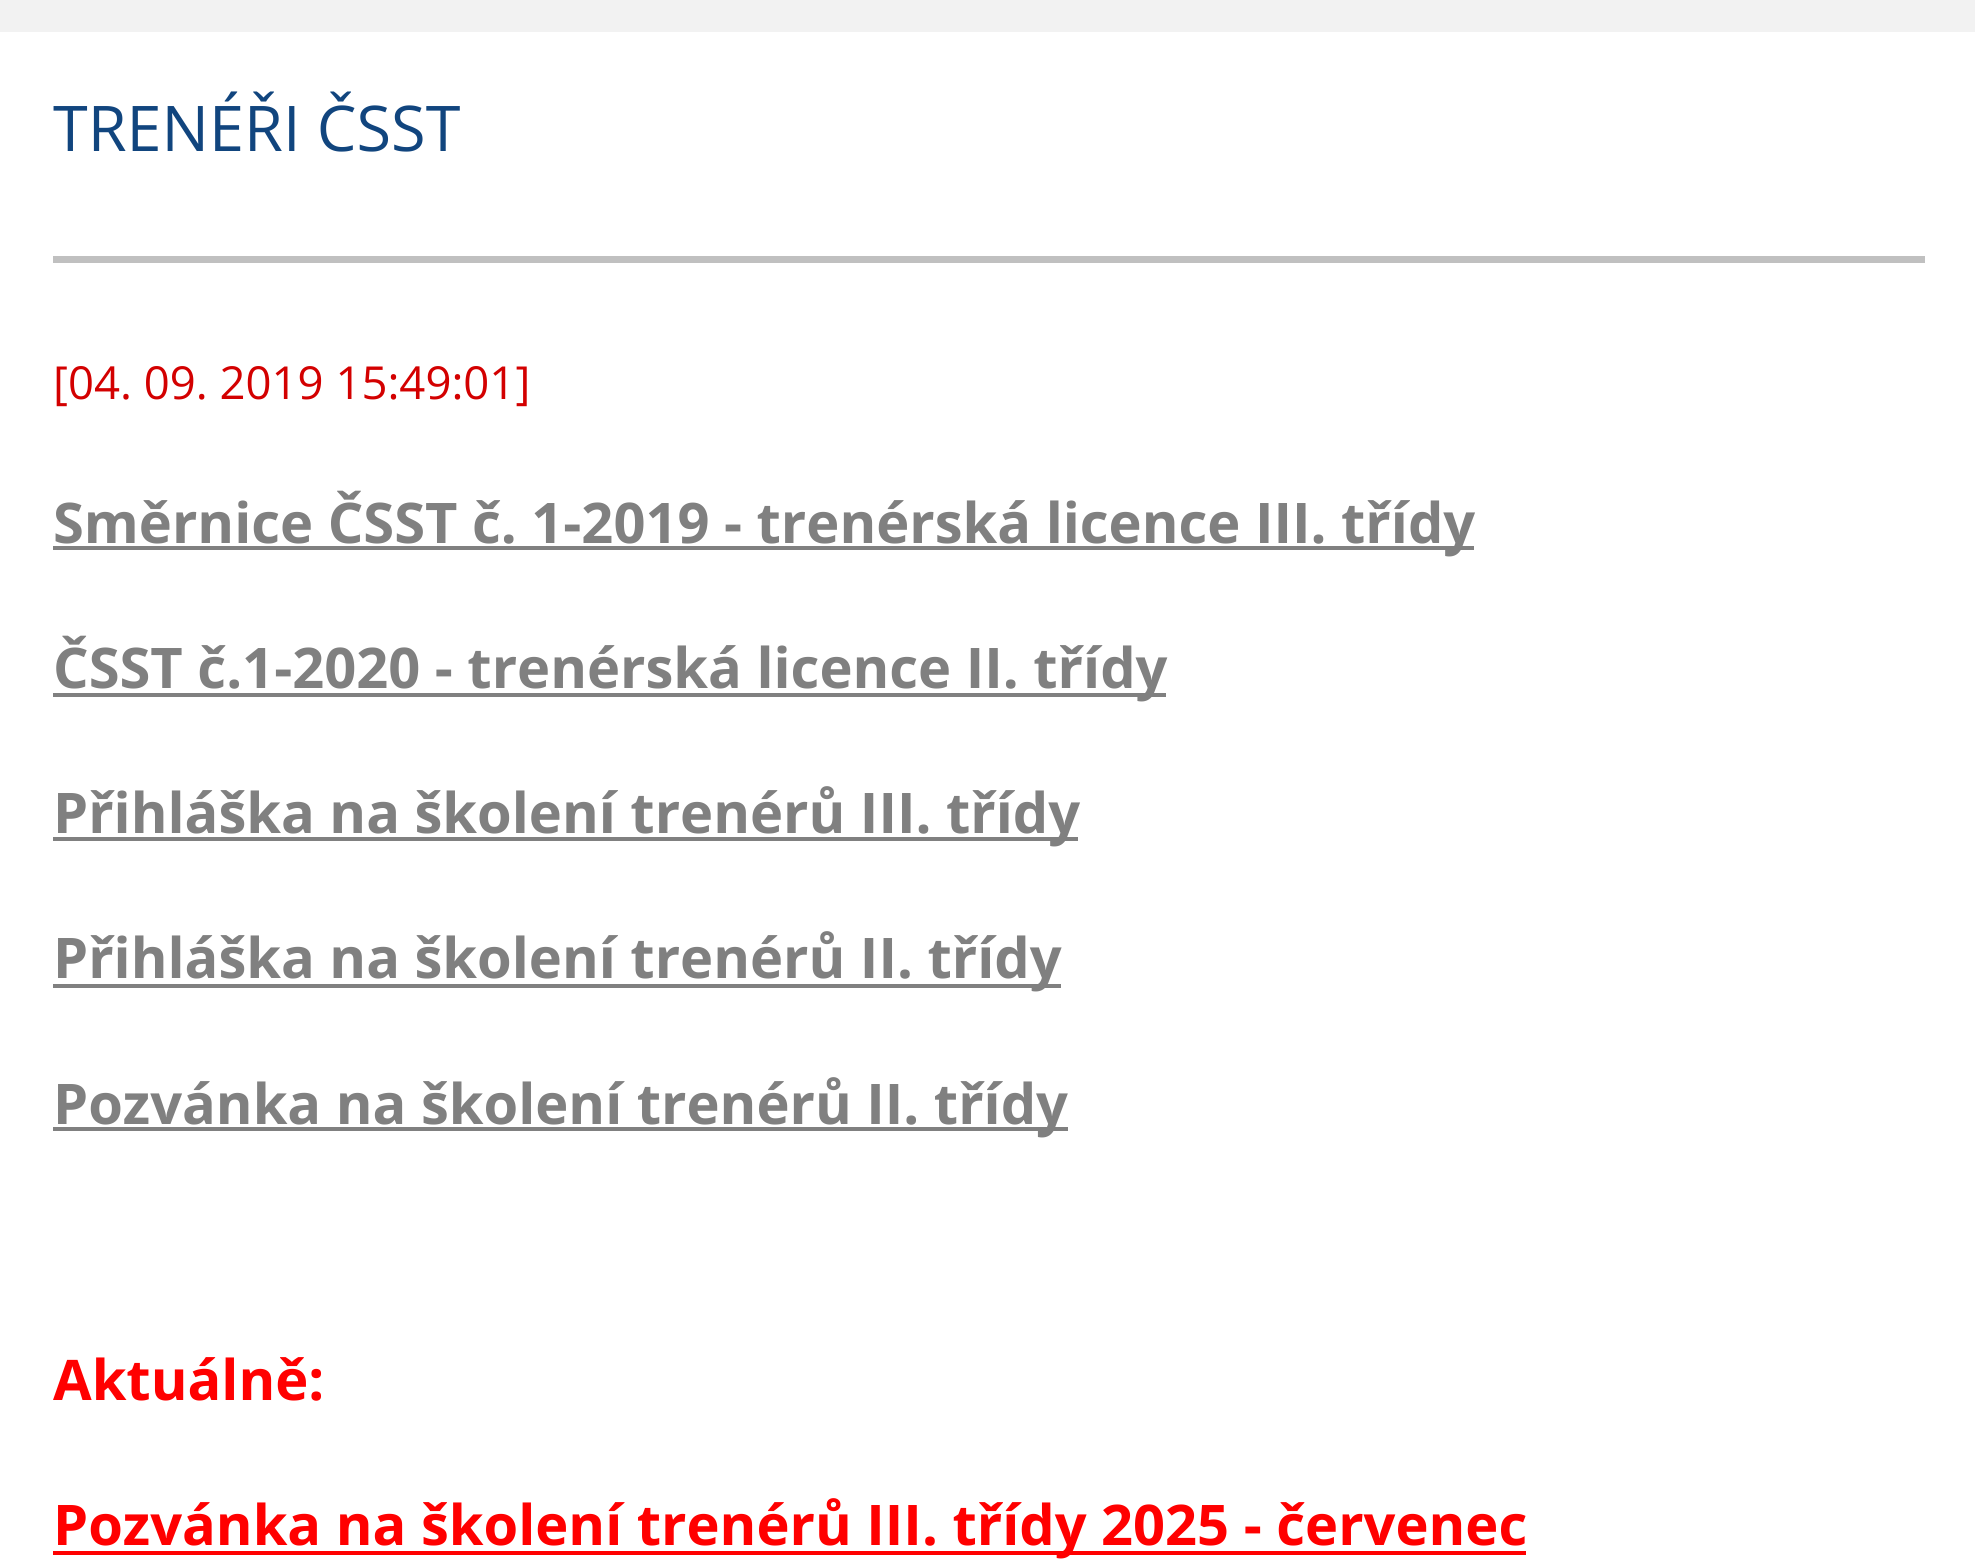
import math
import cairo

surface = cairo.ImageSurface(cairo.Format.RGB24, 1975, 1566)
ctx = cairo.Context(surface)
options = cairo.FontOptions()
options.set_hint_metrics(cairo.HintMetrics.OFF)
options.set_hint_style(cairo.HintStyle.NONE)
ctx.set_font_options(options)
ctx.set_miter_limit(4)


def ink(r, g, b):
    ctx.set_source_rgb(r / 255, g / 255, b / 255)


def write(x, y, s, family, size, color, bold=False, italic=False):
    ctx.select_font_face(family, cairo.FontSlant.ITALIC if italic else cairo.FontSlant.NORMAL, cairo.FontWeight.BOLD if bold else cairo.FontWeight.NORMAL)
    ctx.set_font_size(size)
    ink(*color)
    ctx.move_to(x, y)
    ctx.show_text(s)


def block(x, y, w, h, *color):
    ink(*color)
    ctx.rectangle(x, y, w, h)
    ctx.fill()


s1 = dict(family="Open Sans", size=63, color=(17, 69, 126))
s2 = dict(family="Open Sans", size=45.5, color=(211, 0, 0))
s3 = dict(family="Open Sans", size=56, color=(128, 128, 128), bold=True)
s4 = dict(family="Open Sans", size=56, color=(255, 0, 0), bold=True)

ink(242, 242, 242)
ctx.paint()
block(0, 32, 1975, 1534, 255, 255, 255)
block(53, 256, 1872, 7, 192, 192, 192)
write(53, 151, "TRENÉŘI ČSST", **s1)
write(53, 399, "[04. 09. 2019 15:49:01]", **s2)
block(53, 546, 1421, 4, 128, 128, 128)
write(53, 543, "Směrnice ČSST č. 1-2019 - trenérská licence III. třídy", **s3)
block(53, 693, 1113, 4, 128, 128, 128)
write(53, 688, "ČSST č.1-2020 - trenérská licence II. třídy", **s3)
block(53, 837, 1025, 4, 128, 128, 128)
write(53, 833, "Přihláška na školení trenérů III. třídy", **s3)
block(53, 984, 1008, 4, 128, 128, 128)
write(53, 978, "Přihláška na školení trenérů II. třídy", **s3)
block(53, 1127, 1015, 4, 128, 128, 128)
write(53, 1124, "Pozvánka na školení trenérů II. třídy", **s3)
write(53, 1400, "Aktuálně:", **s4)
block(53, 1551, 1473, 4, 255, 0, 0)
write(53, 1545, "Pozvánka na školení trenérů III. třídy 2025 - červenec", **s4)
surface.write_to_png("screenshot.png")
